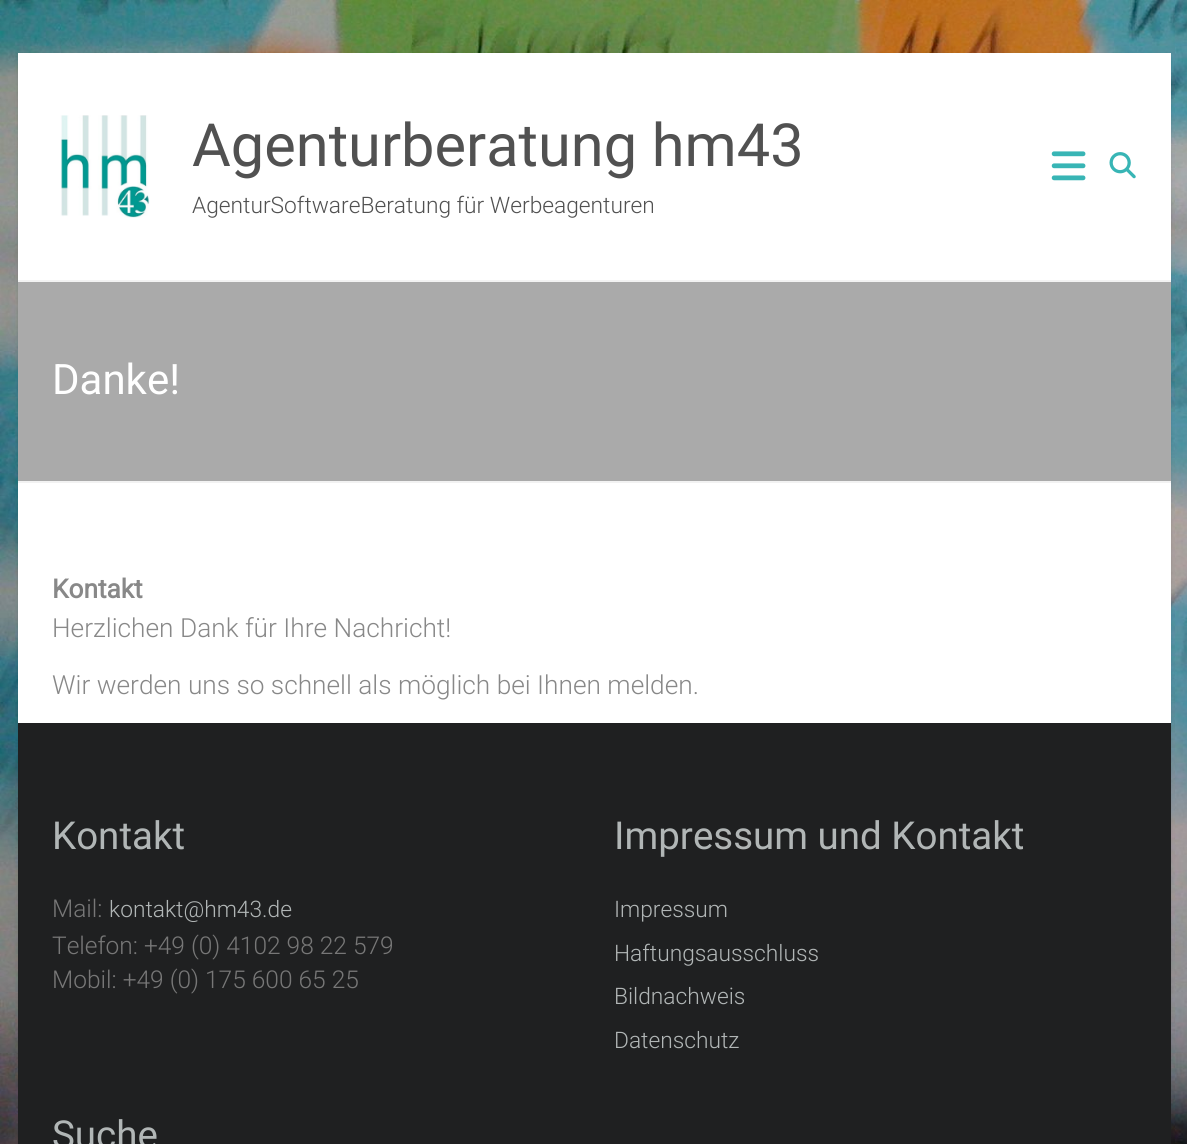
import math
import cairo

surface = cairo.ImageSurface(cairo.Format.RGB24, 1187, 1144)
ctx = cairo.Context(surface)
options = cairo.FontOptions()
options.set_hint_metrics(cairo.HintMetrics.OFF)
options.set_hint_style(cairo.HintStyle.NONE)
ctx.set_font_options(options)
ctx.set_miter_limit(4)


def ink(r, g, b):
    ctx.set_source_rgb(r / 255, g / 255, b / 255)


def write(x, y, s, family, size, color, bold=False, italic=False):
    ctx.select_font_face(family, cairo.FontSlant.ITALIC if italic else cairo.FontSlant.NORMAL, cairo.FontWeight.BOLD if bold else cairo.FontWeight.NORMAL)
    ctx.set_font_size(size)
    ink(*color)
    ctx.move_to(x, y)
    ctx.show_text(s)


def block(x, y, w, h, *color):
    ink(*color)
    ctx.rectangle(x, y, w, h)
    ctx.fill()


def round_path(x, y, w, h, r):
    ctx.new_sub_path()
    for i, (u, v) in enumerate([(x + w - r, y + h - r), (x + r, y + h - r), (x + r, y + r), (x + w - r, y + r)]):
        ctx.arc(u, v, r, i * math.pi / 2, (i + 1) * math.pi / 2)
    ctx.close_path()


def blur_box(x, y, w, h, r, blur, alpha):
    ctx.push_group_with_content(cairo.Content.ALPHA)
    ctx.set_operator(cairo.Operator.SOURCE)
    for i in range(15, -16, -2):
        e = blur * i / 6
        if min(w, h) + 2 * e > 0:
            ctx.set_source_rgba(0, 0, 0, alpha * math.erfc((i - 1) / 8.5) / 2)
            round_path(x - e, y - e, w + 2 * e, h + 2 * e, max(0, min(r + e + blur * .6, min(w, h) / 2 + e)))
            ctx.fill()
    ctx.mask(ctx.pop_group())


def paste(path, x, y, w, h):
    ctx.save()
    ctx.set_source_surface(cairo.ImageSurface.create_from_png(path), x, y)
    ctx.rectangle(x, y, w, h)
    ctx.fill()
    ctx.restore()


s1 = dict(family="Roboto", size=59.5, color=(81, 81, 81))
s2 = dict(family="Roboto Light", size=22.75, color=(81, 81, 81))
s3 = dict(family="Roboto", size=42, color=(255, 255, 255))
s4 = dict(family="Roboto", size=26.25, color=(136, 136, 136), bold=True)
s5 = dict(family="Roboto Light", size=26.25, color=(136, 136, 136))
s6 = dict(family="Roboto", size=38.5, color=(177, 182, 182))
s7 = dict(family="Roboto Light", size=24.5, color=(119, 119, 119))
s8 = dict(family="Roboto Light", size=22.75, color=(177, 182, 182))

ink(255, 255, 255)
ctx.paint()
paste("pic1.png", 0, 0, 1187, 1144)
ink(0, 0, 0)
blur_box(18, 54, 1153, 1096, 0, 2, 0.1)
block(18, 53, 1153, 670, 255, 255, 255)
block(18, 280, 1153, 2, 242, 242, 242)
paste("pic2.png", 60, 115, 90, 103)
write(192, 166, "Agenturberatung hm43", **s1)
write(192, 213, "AgenturSoftwareBeratung für Werbeagenturen", **s2)
paste("pic3.png", 1051, 151, 35, 30)
paste("pic4.png", 1109, 152, 27, 27)
block(18, 282, 1153, 199, 170, 170, 170)
block(18, 481, 1153, 2, 242, 242, 242)
write(52, 394, "Danke!", **s3)
write(52, 598, "Kontakt", **s4)
write(52, 637, "Herzlichen Dank für Ihre Nachricht!", **s5)
write(52, 694, "Wir werden uns so schnell als möglich bei Ihnen melden.", **s5)
block(18, 723, 1153, 421, 31, 32, 33)
write(52, 849, "Kontakt", **s6)
write(52, 917, "Mail:", **s7)
write(109, 917, "kontakt@hm43.de", **s8)
write(52, 954, "Telefon: +49 (0) 4102 98 22 579", **s7)
write(52, 988, "Mobil: +49 (0) 175 600 65 25", **s7)
write(614, 849, "Impressum und Kontakt", **s6)
write(614, 917, "Impressum", **s8)
write(614, 961, "Haftungsausschluss", **s8)
write(614, 1004, "Bildnachweis", **s8)
write(614, 1048, "Datenschutz", **s8)
write(52, 1148, "Suche", **s6)
surface.write_to_png("screenshot.png")
